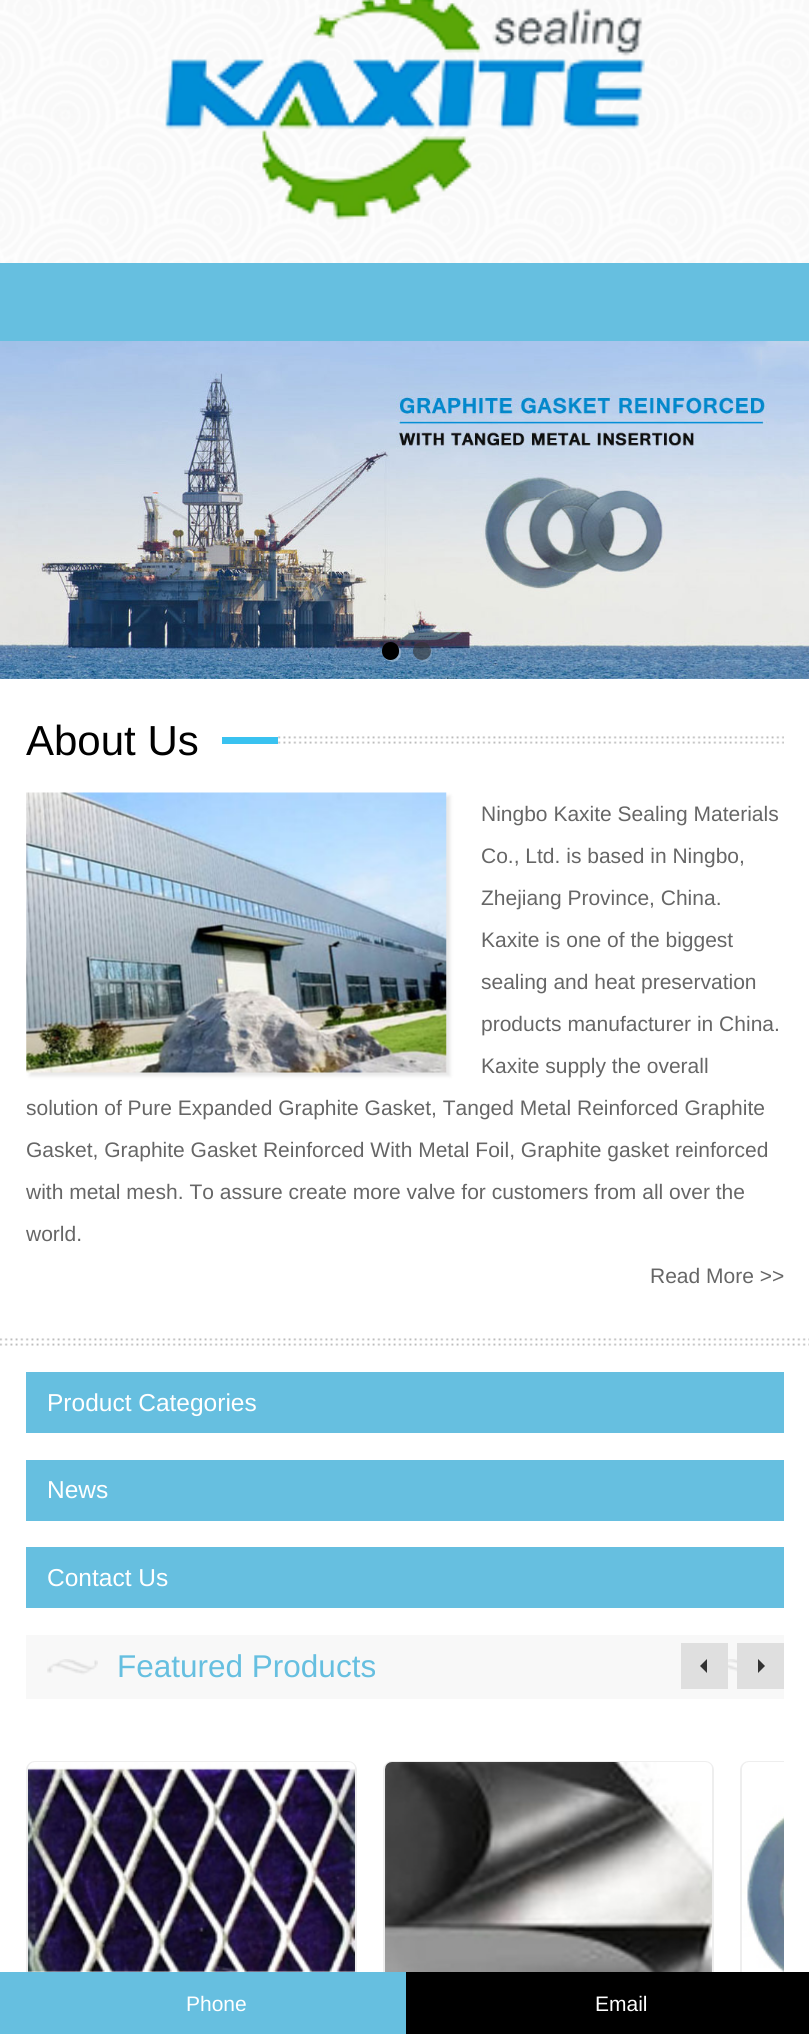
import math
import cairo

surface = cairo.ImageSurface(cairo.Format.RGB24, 809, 2034)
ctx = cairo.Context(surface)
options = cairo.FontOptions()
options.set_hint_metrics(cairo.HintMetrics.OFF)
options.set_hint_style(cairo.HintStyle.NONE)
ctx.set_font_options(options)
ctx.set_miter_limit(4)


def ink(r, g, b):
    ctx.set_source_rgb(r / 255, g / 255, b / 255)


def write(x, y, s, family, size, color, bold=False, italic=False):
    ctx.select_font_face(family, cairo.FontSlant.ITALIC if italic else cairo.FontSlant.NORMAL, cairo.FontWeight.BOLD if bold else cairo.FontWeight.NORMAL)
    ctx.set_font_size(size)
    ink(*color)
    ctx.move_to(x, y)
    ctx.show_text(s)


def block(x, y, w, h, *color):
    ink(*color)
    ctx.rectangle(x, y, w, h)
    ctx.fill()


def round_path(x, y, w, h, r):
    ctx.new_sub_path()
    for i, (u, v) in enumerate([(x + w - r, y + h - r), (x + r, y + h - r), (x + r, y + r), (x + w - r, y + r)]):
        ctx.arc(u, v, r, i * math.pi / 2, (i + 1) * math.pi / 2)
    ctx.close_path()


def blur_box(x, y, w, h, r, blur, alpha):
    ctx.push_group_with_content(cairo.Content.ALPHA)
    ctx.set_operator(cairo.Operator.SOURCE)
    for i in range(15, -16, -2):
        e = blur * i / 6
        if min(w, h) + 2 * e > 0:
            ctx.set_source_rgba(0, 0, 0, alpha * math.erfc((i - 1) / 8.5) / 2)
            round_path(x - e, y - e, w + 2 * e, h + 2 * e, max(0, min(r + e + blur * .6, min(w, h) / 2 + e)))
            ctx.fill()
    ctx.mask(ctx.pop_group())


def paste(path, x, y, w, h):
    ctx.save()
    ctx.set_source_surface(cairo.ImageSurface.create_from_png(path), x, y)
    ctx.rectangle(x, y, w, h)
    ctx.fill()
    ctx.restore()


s1 = dict(family="Liberation Sans", size=42, color=(0, 0, 0))
s2 = dict(family="Liberation Sans", size=21, color=(102, 102, 102))
s3 = dict(family="Liberation Sans", size=24.5, color=(255, 255, 255))
s4 = dict(family="Liberation Sans", size=31.5, color=(102, 191, 224))
s5 = dict(family="Liberation Sans", size=21, color=(255, 255, 255))

ink(255, 255, 255)
ctx.paint()
paste("pic1.png", 0, 0, 809, 679)
paste("pic2.png", 165, 0, 480, 220)
block(0, 263, 809, 78, 102, 191, 224)
paste("pic5.png", 0, 678, 1, 1)
paste("pic6.png", 0, 678, 1, 1)
paste("pic3.png", 0, 341, 809, 338)
paste("pic4.png", 0, 678, 809, 1)
ctx.set_source_rgba(1, 1, 1, 0.3)
ctx.new_path()
ctx.move_to(384, 657)
ctx.curve_to(385, 659, 386.5, 660.5, 388.5, 661)
ctx.curve_to(398.5, 665.5, 406, 651.5, 397, 645.5)
ctx.curve_to(404, 654, 391.5, 665, 384, 657)
ctx.close_path()
ctx.fill()
ink(0, 0, 0)
round_path(382, 642, 17, 18, 8.5)
ctx.fill()
ctx.set_source_rgba(1, 1, 1, 0.18)
ctx.new_path()
ctx.move_to(416, 657.5)
ctx.curve_to(419, 662.5, 425.5, 663.5, 429.5, 659.5)
ctx.curve_to(433, 656, 433, 649, 429, 646)
ctx.curve_to(435, 654, 424, 664, 416, 657.5)
ctx.close_path()
ctx.fill()
ctx.set_source_rgba(0.2, 0.2, 0.2, 0.6)
ctx.arc(422, 651, 9, 0, 2 * math.pi)
ctx.fill()
paste("pic7.png", 0, 1338, 809, 8)
paste("pic8.png", 278, 736, 506, 8)
write(26, 755, "About Us", **s1)
block(222, 737, 56, 7, 57, 194, 240)
ink(0, 0, 0)
blur_box(30, 796, 420, 280, 0, 2, 0.1)
paste("pic9.png", 26, 792, 421, 281)
write(481, 821, "Ningbo Kaxite Sealing Materials", **s2)
write(481, 863, "Co., Ltd. is based in Ningbo,", **s2)
write(481, 905, "Zhejiang Province, China.", **s2)
write(481, 947, "Kaxite is one of the biggest", **s2)
write(481, 989, "sealing and heat preservation", **s2)
write(481, 1031, "products manufacturer in China.", **s2)
write(481, 1073, "Kaxite supply the overall", **s2)
write(26, 1115, "solution of Pure Expanded Graphite Gasket, Tanged Metal Reinforced Graphite", **s2)
write(26, 1157, "Gasket, Graphite Gasket Reinforced With Metal Foil, Graphite gasket reinforced", **s2)
write(26, 1199, "with metal mesh. To assure create more valve for customers from all over the", **s2)
write(26, 1241, "world.", **s2)
write(650, 1283, "Read More >>", **s2)
block(26, 1372, 758, 61, 102, 191, 224)
write(47, 1411, "Product Categories", **s3)
block(26, 1460, 758, 61, 102, 191, 224)
write(47, 1498, "News", **s3)
block(26, 1547, 758, 61, 102, 191, 224)
write(47, 1586, "Contact Us", **s3)
block(26, 1635, 758, 64, 248, 248, 248)
block(681, 1643, 47, 46, 223, 223, 223)
ink(51, 51, 51)
ctx.new_path()
ctx.move_to(707, 1659)
ctx.line_to(707, 1673)
ctx.line_to(700, 1666)
ctx.close_path()
ctx.fill()
block(737, 1643, 47, 46, 223, 223, 223)
ink(51, 51, 51)
ctx.new_path()
ctx.move_to(758, 1673)
ctx.line_to(758, 1659)
ctx.line_to(765, 1666)
ctx.close_path()
ctx.fill()
round_path(27, 1762, 329, 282, 8)
ink(238, 238, 238)
ctx.stroke()
paste("pic10.png", 28, 1762, 327, 210)
round_path(384, 1762, 329, 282, 8)
ctx.stroke()
paste("pic11.png", 385, 1762, 327, 210)
ctx.save()
ctx.rectangle(26, 1761, 758, 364)
ctx.clip()
round_path(741, 1762, 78, 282, 8)
ctx.stroke()
ctx.restore()
paste("pic12.png", 742, 1762, 42, 210)
paste("pic13.png", 47, 1659, 51, 16)
write(117, 1677, "Featured Products", **s4)
paste("pic14.png", 728, 1659, 9, 16)
block(406, 1972, 403, 62, 0, 0, 0)
block(0, 1972, 406, 62, 102, 191, 224)
write(186, 2011, "Phone", **s5)
write(595, 2011, "Email", **s5)
surface.write_to_png("screenshot.png")
